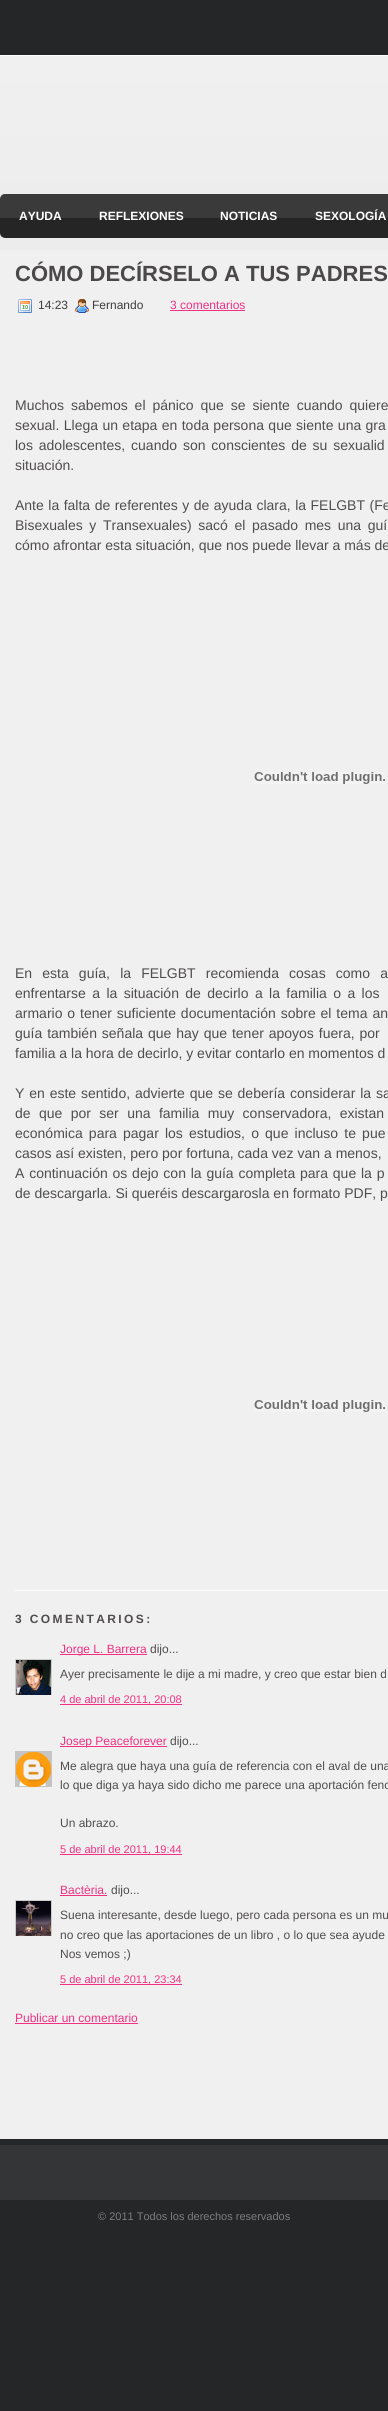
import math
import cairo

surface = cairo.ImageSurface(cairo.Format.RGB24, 388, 2411)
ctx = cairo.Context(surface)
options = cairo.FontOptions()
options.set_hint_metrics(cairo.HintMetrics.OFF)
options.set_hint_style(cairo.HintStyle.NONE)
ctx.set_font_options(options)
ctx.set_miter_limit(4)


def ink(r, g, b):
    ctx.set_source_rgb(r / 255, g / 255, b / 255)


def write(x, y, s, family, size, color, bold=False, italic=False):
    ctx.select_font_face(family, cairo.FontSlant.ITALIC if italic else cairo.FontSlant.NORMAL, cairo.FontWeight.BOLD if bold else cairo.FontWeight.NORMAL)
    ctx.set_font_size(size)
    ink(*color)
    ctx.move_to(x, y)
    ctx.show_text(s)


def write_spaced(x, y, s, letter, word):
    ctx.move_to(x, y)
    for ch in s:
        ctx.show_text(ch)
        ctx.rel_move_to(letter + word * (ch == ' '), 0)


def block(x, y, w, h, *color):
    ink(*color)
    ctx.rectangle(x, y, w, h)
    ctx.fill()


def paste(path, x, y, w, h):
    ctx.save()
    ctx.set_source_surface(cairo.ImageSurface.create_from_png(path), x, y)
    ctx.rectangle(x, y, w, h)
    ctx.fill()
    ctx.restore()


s1 = dict(family="Liberation Sans", size=12, color=(255, 255, 255), bold=True)
s2 = dict(family="Liberation Sans", size=22, color=(74, 72, 72), bold=True)
s3 = dict(family="Liberation Sans", size=12, color=(62, 60, 60))
s4 = dict(family="Liberation Sans", size=12, color=(242, 49, 131))
s5 = dict(family="Liberation Sans", size=14, color=(80, 77, 77))
s6 = dict(family="Liberation Sans", size=12, color=(80, 77, 77))
s7 = dict(family="Liberation Sans", size=11, color=(242, 49, 131))
s8 = dict(family="Liberation Sans", size=11, color=(125, 125, 125))

ink(36, 38, 40)
ctx.paint()
paste("pic1.png", 0, 55, 388, 195)
paste("pic2.png", 0, 194, 388, 44)
write(19, 220, "AYUDA", **s1)
write(99, 220, "REFLEXIONES", **s1)
write(220, 220, "NOTICIAS", **s1)
write(315, 220, "SEXOLOGÍA", **s1)
block(0, 250, 388, 1889, 240, 240, 240)
block(15, 1590, 373, 1, 254, 254, 254)
write(15, 281, "CÓMO DECÍRSELO A TUS PADRES", **s2)
paste("pic3.png", 18, 299, 14, 14)
write(38, 309, "14:23", **s3)
paste("pic4.png", 75, 299, 14, 14)
write(92, 309, "Fernando", **s3)
write(170, 309, "3 comentarios", **s4)
block(170, 310, 75, 1, 242, 49, 131)
ctx.set_font_size(14)
ink(80, 77, 77)
write_spaced(15, 410, "Muchos sabemos el pánico que se siente cuando quiere", 0, 3)
write_spaced(15, 430, "sexual. Llega un etapa en toda persona que siente una gra", 0, 0.5)
write_spaced(15, 450, "los adolescentes, cuando son conscientes de su sexualid", 0, 2)
write(15, 470, "situación.", **s5)
write_spaced(15, 510, "Ante la falta de referentes y de ayuda clara, la FELGBT (Fe", 0, 0.6)
write_spaced(15, 530, "Bisexuales y Transexuales) sacó el pasado mes una guí", 0, 2.75)
write(15, 550, "cómo afrontar esta situación, que nos puede llevar a más de", **s5)
paste("pic5.png", 254, 772, 131, 12)
write_spaced(15, 978, "En esta guía, la FELGBT recomienda cosas como a", 0, 6.25)
write_spaced(15, 998, "enfrentarse a la situación de decirlo a la familia o a los", 0, 2.5)
write_spaced(15, 1018, "armario o tener suficiente documentación sobre el tema an", 0, 1)
write_spaced(15, 1038, "guía también señala que hay que tener apoyos fuera, por", 0, 1)
write(15, 1058, "familia a la hora de decirlo, y evitar contarlo en momentos d", **s5)
write_spaced(15, 1098, "Y en este sentido, advierte que se debería considerar la sa", 0, 1)
write_spaced(15, 1118, "de que por ser una familia muy conservadora, existan", 0, 4.5)
write_spaced(15, 1138, "económica para pagar los estudios, o que incluso te pue", 0, 2.25)
write(15, 1158, "casos así existen, pero por fortuna, cada vez van a menos,", **s5)
write_spaced(15, 1178, "A continuación os dejo con la guía completa para que la p", 0, 0.9)
write(15, 1198, "de descargarla. Si queréis descargarosla en formato PDF, p", **s5)
paste("pic5.png", 254, 1400, 131, 12)
ctx.select_font_face("Liberation Sans", cairo.FontSlant.NORMAL, cairo.FontWeight.BOLD)
ctx.set_font_size(12)
write_spaced(15, 1623, "3 COMENTARIOS:", 2.4, 0)
block(60, 1654, 87, 1, 242, 49, 131)
write(60, 1653, "Jorge L. Barrera", **s4)
write(150, 1653, "dijo...", **s6)
paste("pic6.png", 16, 1660, 35, 35)
ctx.save()
ctx.rectangle(15, 1659, 37, 36)
ctx.clip()
ctx.rectangle(15.5, 1659.5, 36, 36)
ink(204, 204, 204)
ctx.set_line_width(1)
ctx.stroke()
ctx.restore()
write(60, 1678, "Ayer precisamente le dije a mi madre, y creo que estar bien d", **s6)
block(60, 1704, 122, 1, 242, 49, 131)
write(60, 1703, "4 de abril de 2011, 20:08", **s7)
block(60, 1746, 107, 1, 242, 49, 131)
write(60, 1745, "Josep Peaceforever", **s4)
write(170, 1745, "dijo...", **s6)
paste("pic7.png", 15, 1751, 37, 36)
paste("pic8.png", 16, 1752, 35, 35)
write(60, 1770, "Me alegra que haya una guía de referencia con el aval de una", **s6)
write(60, 1789, "lo que diga ya haya sido dicho me parece una aportación feno", **s6)
write(60, 1827, "Un abrazo.", **s6)
block(60, 1854, 122, 1, 242, 49, 131)
write(60, 1853, "5 de abril de 2011, 19:44", **s7)
write(60, 1894, "Bactèria.", **s4)
block(60, 1895, 47, 1, 242, 49, 131)
write(111, 1894, "dijo...", **s6)
paste("pic9.png", 16, 1901, 35, 35)
ctx.save()
ctx.rectangle(15, 1900, 37, 36)
ctx.clip()
ctx.rectangle(15.5, 1900.5, 36, 36)
ink(204, 204, 204)
ctx.set_line_width(1)
ctx.stroke()
ctx.restore()
write(60, 1919, "Suena interesante, desde luego, pero cada persona es un mu", **s6)
write(60, 1939, "no creo que las aportaciones de un libro , o lo que sea ayude", **s6)
write(60, 1958, "Nos vemos ;)", **s6)
block(60, 1984, 122, 1, 242, 49, 131)
write(60, 1983, "5 de abril de 2011, 23:34", **s7)
write(15, 2022, "Publicar un comentario", **s4)
block(15, 2023, 123, 1, 242, 49, 131)
block(0, 2145, 388, 55, 52, 53, 54)
write(98, 2220, "© 2011 Todos los derechos reservados", **s8)
surface.write_to_png("screenshot.png")
